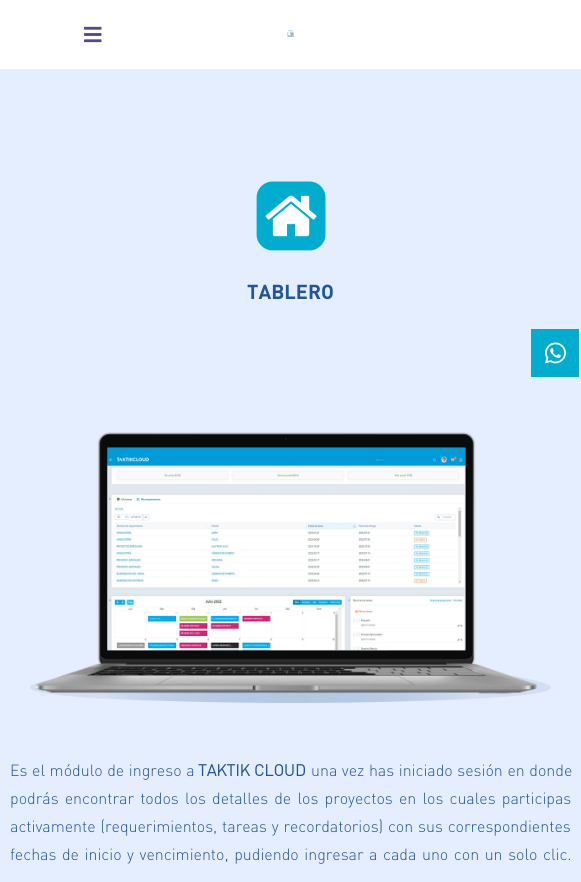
import math
import cairo

surface = cairo.ImageSurface(cairo.Format.RGB24, 581, 882)
ctx = cairo.Context(surface)
options = cairo.FontOptions()
options.set_hint_metrics(cairo.HintMetrics.OFF)
options.set_hint_style(cairo.HintStyle.NONE)
ctx.set_font_options(options)
ctx.set_miter_limit(4)


def ink(r, g, b):
    ctx.set_source_rgb(r / 255, g / 255, b / 255)


def write(x, y, s, family, size, color, bold=False, italic=False):
    ctx.select_font_face(family, cairo.FontSlant.ITALIC if italic else cairo.FontSlant.NORMAL, cairo.FontWeight.BOLD if bold else cairo.FontWeight.NORMAL)
    ctx.set_font_size(size)
    ink(*color)
    ctx.move_to(x, y)
    ctx.show_text(s)


def write_spaced(x, y, s, letter, word):
    ctx.move_to(x, y)
    for ch in s:
        ctx.show_text(ch)
        ctx.rel_move_to(letter + word * (ch == ' '), 0)


def block(x, y, w, h, *color):
    ink(*color)
    ctx.rectangle(x, y, w, h)
    ctx.fill()


def paste(path, x, y, w, h):
    ctx.save()
    ctx.set_source_surface(cairo.ImageSurface.create_from_png(path), x, y)
    ctx.rectangle(x, y, w, h)
    ctx.fill()
    ctx.restore()


s1 = dict(family="DIN", size=20, color=(35, 85, 154), bold=True)
s2 = dict(family="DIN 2", size=16, color=(35, 85, 154), bold=True)

ink(229, 238, 255)
ctx.paint()
block(0, 0, 581, 69, 255, 255, 255)
block(0, 69, 581, 1, 237, 239, 242)
paste("pic1.png", 84, 26, 18, 17)
paste("pic2.png", 287, 30, 7, 7)
paste("pic3.png", 256, 181, 70, 70)
write(247, 299, "TABLERO", **s1)
paste("pic4.png", 30, 432, 521, 271)
ctx.select_font_face("DIN Light")
ctx.set_font_size(16)
write_spaced(10, 776, "Es el módulo de ingreso a", 0, 0.5)
write(198, 776, "TAKTIK CLOUD", **s2)
ctx.select_font_face("DIN Light")
write_spaced(311, 776, "una vez has iniciado sesión en donde", 0, 0.5)
write_spaced(10, 804, "podrás encontrar todos los detalles de los proyectos en los cuales participas", 0, 2.1)
write_spaced(10, 832, "activamente (requerimientos, tareas y recordatorios) con sus correspondientes", 0, 0.75)
write_spaced(10, 860, "fechas de inicio y vencimiento, pudiendo ingresar a cada uno con un solo clic.", 0, 1.5)
block(531, 329, 48, 48, 0, 173, 206)
paste("pic5.png", 545, 342, 21, 22)
surface.write_to_png("screenshot.png")
